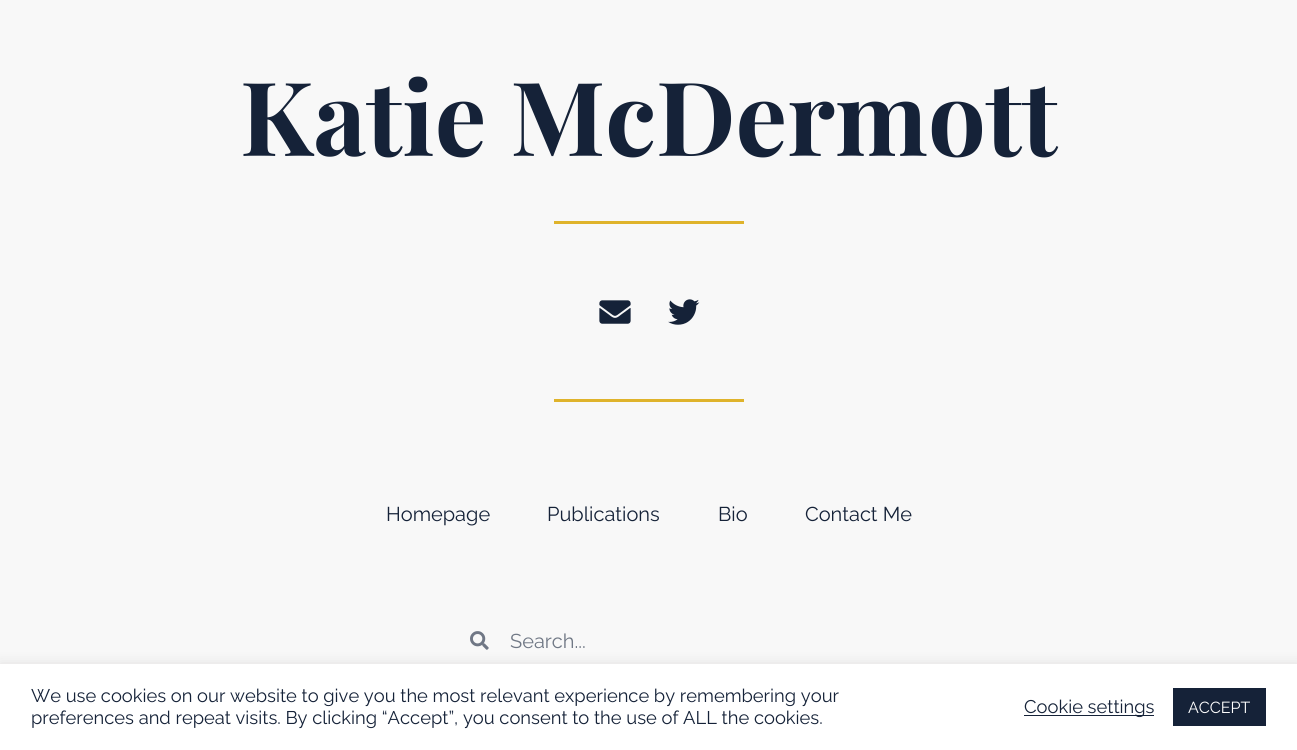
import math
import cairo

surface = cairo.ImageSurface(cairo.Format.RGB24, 1297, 750)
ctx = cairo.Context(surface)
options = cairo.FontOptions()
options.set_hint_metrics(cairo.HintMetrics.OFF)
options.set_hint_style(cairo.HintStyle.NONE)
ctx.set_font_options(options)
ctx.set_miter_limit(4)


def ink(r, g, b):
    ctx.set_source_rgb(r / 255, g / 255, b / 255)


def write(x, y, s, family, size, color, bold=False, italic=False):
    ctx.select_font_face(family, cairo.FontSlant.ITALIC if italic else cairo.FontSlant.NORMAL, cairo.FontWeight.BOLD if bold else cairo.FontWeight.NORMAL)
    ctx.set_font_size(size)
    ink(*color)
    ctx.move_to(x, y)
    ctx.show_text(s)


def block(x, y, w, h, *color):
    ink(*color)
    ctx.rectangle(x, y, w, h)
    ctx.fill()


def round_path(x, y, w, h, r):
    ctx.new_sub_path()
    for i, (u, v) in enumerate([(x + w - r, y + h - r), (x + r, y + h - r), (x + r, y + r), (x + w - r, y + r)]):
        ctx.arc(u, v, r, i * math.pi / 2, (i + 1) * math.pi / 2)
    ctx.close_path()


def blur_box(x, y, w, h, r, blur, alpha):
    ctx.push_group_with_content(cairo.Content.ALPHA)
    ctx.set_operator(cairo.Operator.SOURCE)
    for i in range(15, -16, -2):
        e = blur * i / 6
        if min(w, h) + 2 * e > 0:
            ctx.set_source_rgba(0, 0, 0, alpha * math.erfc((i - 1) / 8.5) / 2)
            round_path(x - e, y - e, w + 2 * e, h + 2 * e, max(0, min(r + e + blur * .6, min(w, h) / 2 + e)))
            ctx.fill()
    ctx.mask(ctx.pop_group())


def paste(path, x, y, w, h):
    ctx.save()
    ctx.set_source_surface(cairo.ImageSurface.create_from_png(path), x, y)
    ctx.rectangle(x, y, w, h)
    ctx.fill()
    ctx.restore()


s1 = dict(family="Playfair Display", size=102.5, color=(21, 34, 56), bold=True)
s2 = dict(family="Raleway", size=20, color=(21, 34, 56))
s3 = dict(family="Raleway", size=20, color=(112, 120, 133))
s4 = dict(family="Raleway", size=18.35, color=(21, 34, 56))
s5 = dict(family="Raleway", size=16, color=(255, 255, 255))

ink(248, 248, 248)
ctx.paint()
write(240, 156, "Katie McDermott", **s1)
block(554, 221, 190, 3, 223, 179, 43)
paste("pic1.png", 599, 300, 32, 24)
paste("pic2.png", 668, 299, 32, 26)
block(554, 399, 190, 3, 223, 179, 43)
write(386, 521, "Homepage", **s2)
write(547, 521, "Publications", **s2)
write(718, 521, "Bio", **s2)
write(805, 521, "Contact Me", **s2)
paste("pic3.png", 470, 631, 19, 19)
write(510, 648, "Search...", **s3)
ink(172, 171, 171)
blur_box(0, 663, 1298, 86, 0, 6, 0.3)
block(0, 664, 1297, 86, 255, 255, 255)
write(31, 702, "We use cookies on our website to give you the most relevant experience by remembering your", **s4)
write(31, 724, "preferences and repeat visits. By clicking “Accept”, you consent to the use of ALL the cookies.", **s4)
block(1024, 715, 130, 1, 21, 34, 56)
write(1024, 713, "Cookie settings", **s4)
block(1173, 688, 93, 38, 21, 34, 56)
write(1188, 713, "ACCEPT", **s5)
surface.write_to_png("screenshot.png")
